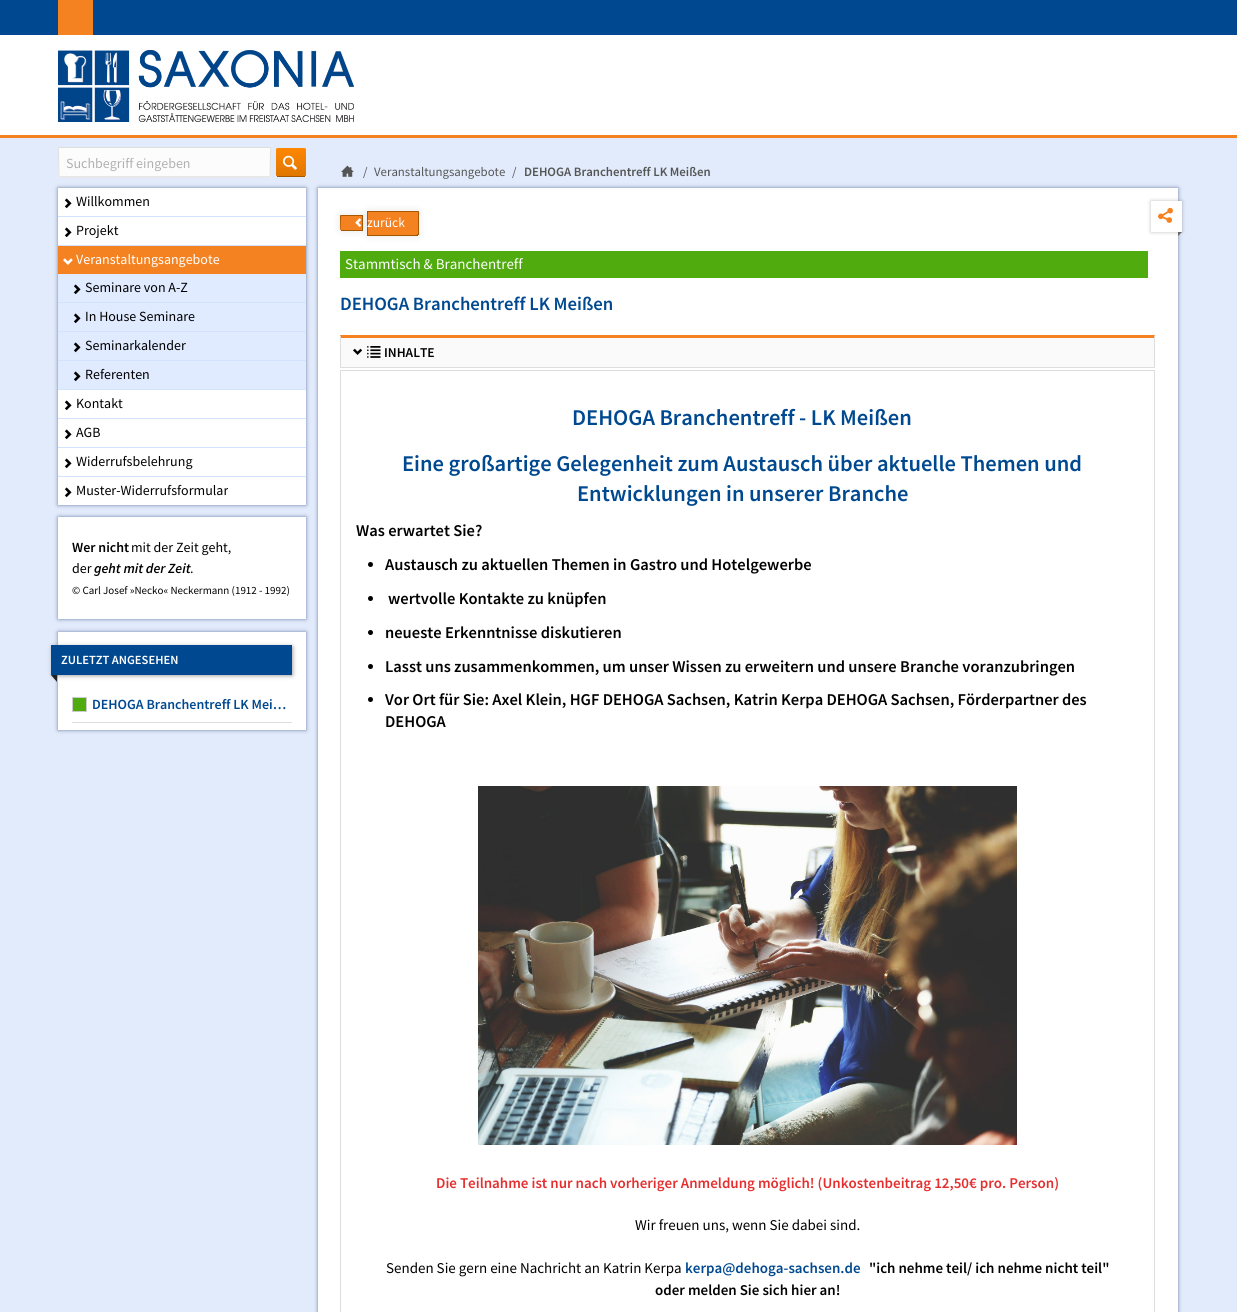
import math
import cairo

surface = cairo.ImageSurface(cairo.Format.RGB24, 1237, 1312)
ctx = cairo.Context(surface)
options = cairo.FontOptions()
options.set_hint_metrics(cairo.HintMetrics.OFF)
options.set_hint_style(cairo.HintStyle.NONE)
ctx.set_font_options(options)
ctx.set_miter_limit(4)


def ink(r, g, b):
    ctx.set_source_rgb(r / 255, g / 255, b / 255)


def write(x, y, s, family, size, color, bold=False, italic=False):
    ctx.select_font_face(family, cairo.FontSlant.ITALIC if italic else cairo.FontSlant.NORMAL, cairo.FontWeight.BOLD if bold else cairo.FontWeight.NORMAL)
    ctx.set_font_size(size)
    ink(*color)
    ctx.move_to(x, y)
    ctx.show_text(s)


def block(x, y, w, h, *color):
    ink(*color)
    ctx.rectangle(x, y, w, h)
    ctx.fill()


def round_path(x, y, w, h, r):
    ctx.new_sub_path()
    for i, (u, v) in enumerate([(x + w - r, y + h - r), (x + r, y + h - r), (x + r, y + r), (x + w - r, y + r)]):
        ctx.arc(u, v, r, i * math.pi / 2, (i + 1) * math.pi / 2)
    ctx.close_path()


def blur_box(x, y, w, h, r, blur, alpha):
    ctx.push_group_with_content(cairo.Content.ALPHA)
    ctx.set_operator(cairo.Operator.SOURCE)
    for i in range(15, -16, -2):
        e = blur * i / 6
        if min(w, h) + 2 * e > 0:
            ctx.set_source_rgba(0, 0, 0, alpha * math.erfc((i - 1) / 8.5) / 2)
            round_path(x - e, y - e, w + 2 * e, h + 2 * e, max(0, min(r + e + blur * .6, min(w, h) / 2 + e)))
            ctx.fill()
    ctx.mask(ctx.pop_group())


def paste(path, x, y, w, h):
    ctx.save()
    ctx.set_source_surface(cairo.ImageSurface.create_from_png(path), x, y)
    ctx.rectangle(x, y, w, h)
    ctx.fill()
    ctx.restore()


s1 = dict(family="Source Sans Pro", size=14, color=(177, 177, 177))
s2 = dict(family="Source Sans Pro", size=12.8, color=(85, 85, 85))
s3 = dict(family="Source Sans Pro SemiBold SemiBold", size=12.8, color=(85, 85, 85))
s4 = dict(family="Source Sans Pro", size=14, color=(0, 0, 0))
s5 = dict(family="Source Sans Pro", size=14, color=(255, 255, 255))
s6 = dict(family="Source Sans Pro SemiBold SemiBold", size=14, color=(0, 0, 0))
s7 = dict(family="Source Sans Pro SemiBold SemiBold", size=14, color=(0, 0, 0), italic=True)
s8 = dict(family="Source Sans Pro", size=11, color=(0, 0, 0))
s9 = dict(family="Source Sans Pro SemiBold SemiBold", size=12.5, color=(255, 255, 255))
s10 = dict(family="Source Sans Pro SemiBold SemiBold", size=14, color=(0, 73, 144))
s11 = dict(family="Source Sans Pro", size=13.5, color=(255, 255, 255))
s12 = dict(family="Source Sans Pro", size=15, color=(255, 255, 255))
s13 = dict(family="Source Sans Pro SemiBold SemiBold", size=18.75, color=(0, 73, 144))
s14 = dict(family="Source Sans Pro SemiBold SemiBold", size=13.5, color=(0, 0, 0))
s15 = dict(family="Source Sans Pro SemiBold SemiBold", size=22.5, color=(0, 73, 144))
s16 = dict(family="Source Sans Pro SemiBold SemiBold", size=16.5, color=(0, 0, 0))
s17 = dict(family="Source Sans Pro SemiBold SemiBold", size=15, color=(229, 47, 47))
s18 = dict(family="Source Sans Pro", size=15, color=(0, 0, 0))
s19 = dict(family="Source Sans Pro SemiBold SemiBold", size=15, color=(0, 73, 144))
s20 = dict(family="Source Sans Pro SemiBold SemiBold", size=15, color=(0, 0, 0))

ink(226, 235, 251)
ctx.paint()
block(0, 35, 1237, 100, 255, 255, 255)
block(0, 0, 1237, 35, 0, 73, 144)
block(0, 135, 1237, 3, 245, 130, 33)
block(58, 0, 35, 35, 245, 130, 33)
paste("pic1.png", 58, 50, 296, 72)
ink(252, 252, 252)
round_path(58, 147, 213, 31, 1.5)
ctx.fill()
ctx.new_path()
ctx.move_to(270, 177)
ctx.line_to(59, 177)
ink(212, 212, 212)
ctx.set_line_width(1)
ctx.stroke()
ctx.new_path()
ctx.move_to(59, 177)
ctx.line_to(58.5, 153)
ctx.curve_to(58.5, 151, 57.5, 147.5, 59.5, 147.5)
ctx.line_to(269.5, 147.5)
ctx.curve_to(271.5, 147.5, 270.5, 151, 270.5, 153)
ctx.line_to(270, 177)
ink(222, 222, 222)
ctx.stroke()
write(66, 168, "Suchbegriff eingeben", **s1)
paste("pic2.png", 276, 148, 30, 28)
block(277, 176, 28, 1, 163, 87, 1)
paste("pic3.png", 283, 155, 14, 15)
paste("pic4.png", 341, 165, 13, 12)
write(363, 176, "/", **s2)
write(374, 176, "Veranstaltungsangebote", **s2)
write(512, 176, "/", **s2)
write(524, 176, "DEHOGA Branchentreff LK Meißen", **s3)
ink(109, 127, 165)
blur_box(58, 188, 248, 317, 0, 2, 1)
block(58, 216, 248, 1, 210, 226, 255)
block(58, 188, 248, 28, 255, 255, 255)
paste("pic5.png", 64, 198, 8, 11)
write(76, 206, "Willkommen", **s4)
block(58, 245, 248, 1, 210, 226, 255)
block(58, 217, 248, 28, 255, 255, 255)
paste("pic5.png", 64, 227, 8, 11)
write(76, 235, "Projekt", **s4)
block(58, 389, 248, 1, 210, 226, 255)
block(58, 246, 248, 28, 245, 130, 33)
paste("pic6.png", 63, 258, 10, 7)
write(76, 264, "Veranstaltungsangebote", **s5)
block(58, 302, 248, 1, 210, 226, 255)
block(58, 274, 248, 28, 224, 235, 255)
paste("pic7.png", 73, 284, 8, 11)
write(85, 292, "Seminare von A-Z", **s4)
block(58, 331, 248, 1, 210, 226, 255)
block(58, 303, 248, 28, 224, 235, 255)
paste("pic7.png", 73, 313, 8, 11)
write(85, 321, "In House Seminare", **s4)
block(58, 360, 248, 1, 210, 226, 255)
block(58, 332, 248, 28, 224, 235, 255)
paste("pic7.png", 73, 342, 8, 11)
write(85, 350, "Seminarkalender", **s4)
block(58, 361, 248, 28, 224, 235, 255)
paste("pic7.png", 73, 371, 8, 11)
write(85, 379, "Referenten", **s4)
block(58, 418, 248, 1, 210, 226, 255)
block(58, 390, 248, 28, 255, 255, 255)
paste("pic5.png", 64, 400, 8, 11)
write(76, 408, "Kontakt", **s4)
block(58, 447, 248, 1, 210, 226, 255)
block(58, 419, 248, 28, 255, 255, 255)
paste("pic5.png", 64, 429, 8, 11)
write(76, 437, "AGB", **s4)
block(58, 476, 248, 1, 210, 226, 255)
block(58, 448, 248, 28, 255, 255, 255)
paste("pic5.png", 64, 458, 8, 11)
write(76, 466, "Widerrufsbelehrung", **s4)
block(58, 477, 248, 28, 255, 255, 255)
paste("pic5.png", 64, 487, 8, 11)
write(76, 495, "Muster-Widerrufsformular", **s4)
ink(109, 127, 165)
blur_box(58, 517, 248, 102, 0, 2, 1)
block(58, 517, 248, 102, 255, 255, 255)
write(72, 552, "Wer nicht", **s6)
write(131, 552, "mit der Zeit geht,", **s4)
write(72, 573, "der", **s4)
write(94, 573, "geht mit der Zeit", **s7)
write(190, 573, ".", **s4)
write(72, 594, "© Carl Josef »Necko« Neckermann (1912 - 1992)", **s8)
ink(109, 127, 165)
blur_box(58, 632, 248, 98, 0, 2, 1)
block(58, 632, 248, 98, 255, 255, 255)
ink(0, 0, 0)
blur_box(53, 647, 239, 28, 0, 2.5, 0.5)
block(51, 645, 241, 30, 0, 73, 144)
write(61, 664, "ZULETZT ANGESEHEN", **s9)
ink(34, 34, 34)
ctx.new_path()
ctx.move_to(57, 675)
ctx.line_to(57, 682)
ctx.line_to(51, 675)
ctx.close_path()
ctx.fill()
block(72, 722, 220, 1, 222, 222, 222)
ink(80, 171, 15)
ctx.rectangle(72.5, 697.5, 14, 14)
ctx.fill_preserve()
ink(204, 204, 204)
ctx.stroke()
write(92, 709, "DEHOGA Branchentreff LK Mei…", **s10)
ink(109, 127, 165)
blur_box(318, 188, 860, 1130, 0, 2, 1)
block(318, 188, 860, 1124, 255, 255, 255)
ink(0, 0, 0)
blur_box(340, 215, 23, 16, 1.5, 4, 0.1)
ink(245, 130, 33)
ctx.new_path()
ctx.move_to(341.5, 215)
ctx.line_to(363, 215)
ctx.line_to(363, 230)
ctx.line_to(341.5, 230)
ctx.curve_to(340.5, 230, 340, 230, 340, 229.5)
ctx.line_to(340, 216.5)
ctx.curve_to(340, 215.5, 340.5, 215, 341.5, 215)
ctx.close_path()
ctx.fill()
block(362, 215, 1, 15, 167, 88, 0)
ctx.new_path()
ctx.move_to(342, 216)
ctx.line_to(363, 216)
ctx.line_to(363, 215)
ctx.line_to(341.5, 215)
ctx.curve_to(340.5, 215, 340, 215.5, 340, 216.5)
ctx.line_to(340, 229.5)
ctx.line_to(340.5, 230)
ctx.line_to(341, 217.5)
ctx.curve_to(341, 217, 341, 216, 342, 216)
ctx.close_path()
ctx.fill()
block(341, 230, 22, 1, 163, 87, 1)
ink(0, 0, 0)
blur_box(367, 211, 52, 25, 1.5, 4, 0.1)
ink(245, 130, 33)
ctx.new_path()
ctx.move_to(367, 211)
ctx.line_to(418, 211)
ctx.curve_to(418, 211, 419, 212, 419, 212)
ctx.line_to(419, 234)
ctx.line_to(418, 235)
ctx.line_to(367, 235)
ctx.close_path()
ctx.fill()
ink(167, 88, 0)
ctx.new_path()
ctx.move_to(416, 235)
ctx.curve_to(420, 235, 419, 235.5, 419, 231)
ctx.line_to(419, 216)
ctx.curve_to(419, 212, 420, 211, 416, 211)
ctx.line_to(418, 212)
ctx.line_to(418, 234)
ctx.close_path()
ctx.fill()
ctx.new_path()
ctx.move_to(368, 212)
ctx.line_to(419, 212)
ctx.line_to(418, 211)
ctx.line_to(367, 211)
ctx.line_to(367, 235)
ctx.line_to(368, 235)
ctx.close_path()
ctx.fill()
block(367, 235, 51, 1, 163, 87, 1)
paste("pic8.png", 355, 218, 7, 9)
write(367, 227, "zurück", **s11)
block(340, 251, 808, 27, 80, 171, 15)
write(345, 269, "Stammtisch & Branchentreff", **s12)
write(340, 310, "DEHOGA Branchentreff LK Meißen", **s13)
block(341, 338, 813, 29, 250, 250, 250)
ink(245, 130, 33)
ctx.new_path()
ctx.move_to(340, 335)
ctx.line_to(1155, 335)
ctx.line_to(1154, 338)
ctx.line_to(341, 338)
ctx.close_path()
ctx.fill()
ink(221, 221, 221)
ctx.new_path()
ctx.move_to(1155, 335)
ctx.line_to(1155, 368)
ctx.line_to(1154, 367)
ctx.line_to(1154, 338)
ctx.close_path()
ctx.fill()
block(340, 367, 815, 1, 222, 222, 222)
ink(221, 221, 221)
ctx.new_path()
ctx.move_to(340, 368)
ctx.line_to(340, 335)
ctx.line_to(341, 338)
ctx.line_to(341, 367)
ctx.close_path()
ctx.fill()
paste("pic9.png", 353, 348, 10, 7)
paste("pic10.png", 367, 346, 14, 12)
write(384, 357, "INHALTE", **s14)
ctx.rectangle(340.5, 370.5, 814, 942)
ink(221, 221, 221)
ctx.stroke()
write(572, 425, "DEHOGA Branchentreff - LK Meißen", **s15)
write(402, 471, "Eine großartige Gelegenheit zum Austausch über aktuelle Themen und", **s15)
write(577, 501, "Entwicklungen in unserer Branche", **s15)
write(356, 536, "Was erwartet Sie?", **s16)
ctx.new_path()
ctx.arc(370.5, 564.5, 2.5, 0, 2 * math.pi)
ctx.fill()
write(385, 570, "Austausch zu aktuellen Themen in Gastro und Hotelgewerbe", **s16)
ctx.new_path()
ctx.arc(370.5, 598.5, 2.5, 0, 2 * math.pi)
ctx.fill()
write(388, 604, "wertvolle Kontakte zu knüpfen", **s16)
ctx.new_path()
ctx.arc(370.5, 632.5, 2.5, 0, 2 * math.pi)
ctx.fill()
write(385, 638, "neueste Erkenntnisse diskutieren", **s16)
ctx.new_path()
ctx.arc(370.5, 666.5, 2.5, 0, 2 * math.pi)
ctx.fill()
write(385, 672, "Lasst uns zusammenkommen, um unser Wissen zu erweitern und unsere Branche voranzubringen", **s16)
ctx.new_path()
ctx.arc(370.5, 699.5, 2.5, 0, 2 * math.pi)
ctx.fill()
write(385, 705, "Vor Ort für Sie: Axel Klein, HGF DEHOGA Sachsen, Katrin Kerpa DEHOGA Sachsen, Förderpartner des", **s16)
write(385, 727, "DEHOGA", **s16)
paste("pic11.png", 478, 786, 539, 359)
write(436, 1188, "Die Teilnahme ist nur nach vorheriger Anmeldung möglich! (Unkostenbeitrag 12,50€ pro. Person)", **s17)
write(635, 1230, "Wir freuen uns, wenn Sie dabei sind.", **s18)
write(386, 1273, "Senden Sie gern eine Nachricht an Katrin Kerpa", **s18)
write(685, 1273, "kerpa@dehoga-sachsen.de", **s19)
write(869, 1273, "\"ich nehme teil/ ich nehme nicht teil\"", **s20)
write(655, 1295, "oder melden Sie sich hier an!", **s20)
ink(0, 0, 0)
blur_box(1151, 201, 31, 31, 0, 2, 0.25)
block(1151, 201, 31, 31, 255, 255, 255)
paste("pic12.png", 1158, 207, 15, 16)
ink(102, 102, 102)
ctx.new_path()
ctx.move_to(1178, 232)
ctx.line_to(1182, 232)
ctx.line_to(1178, 236)
ctx.close_path()
ctx.fill()
surface.write_to_png("screenshot.png")
